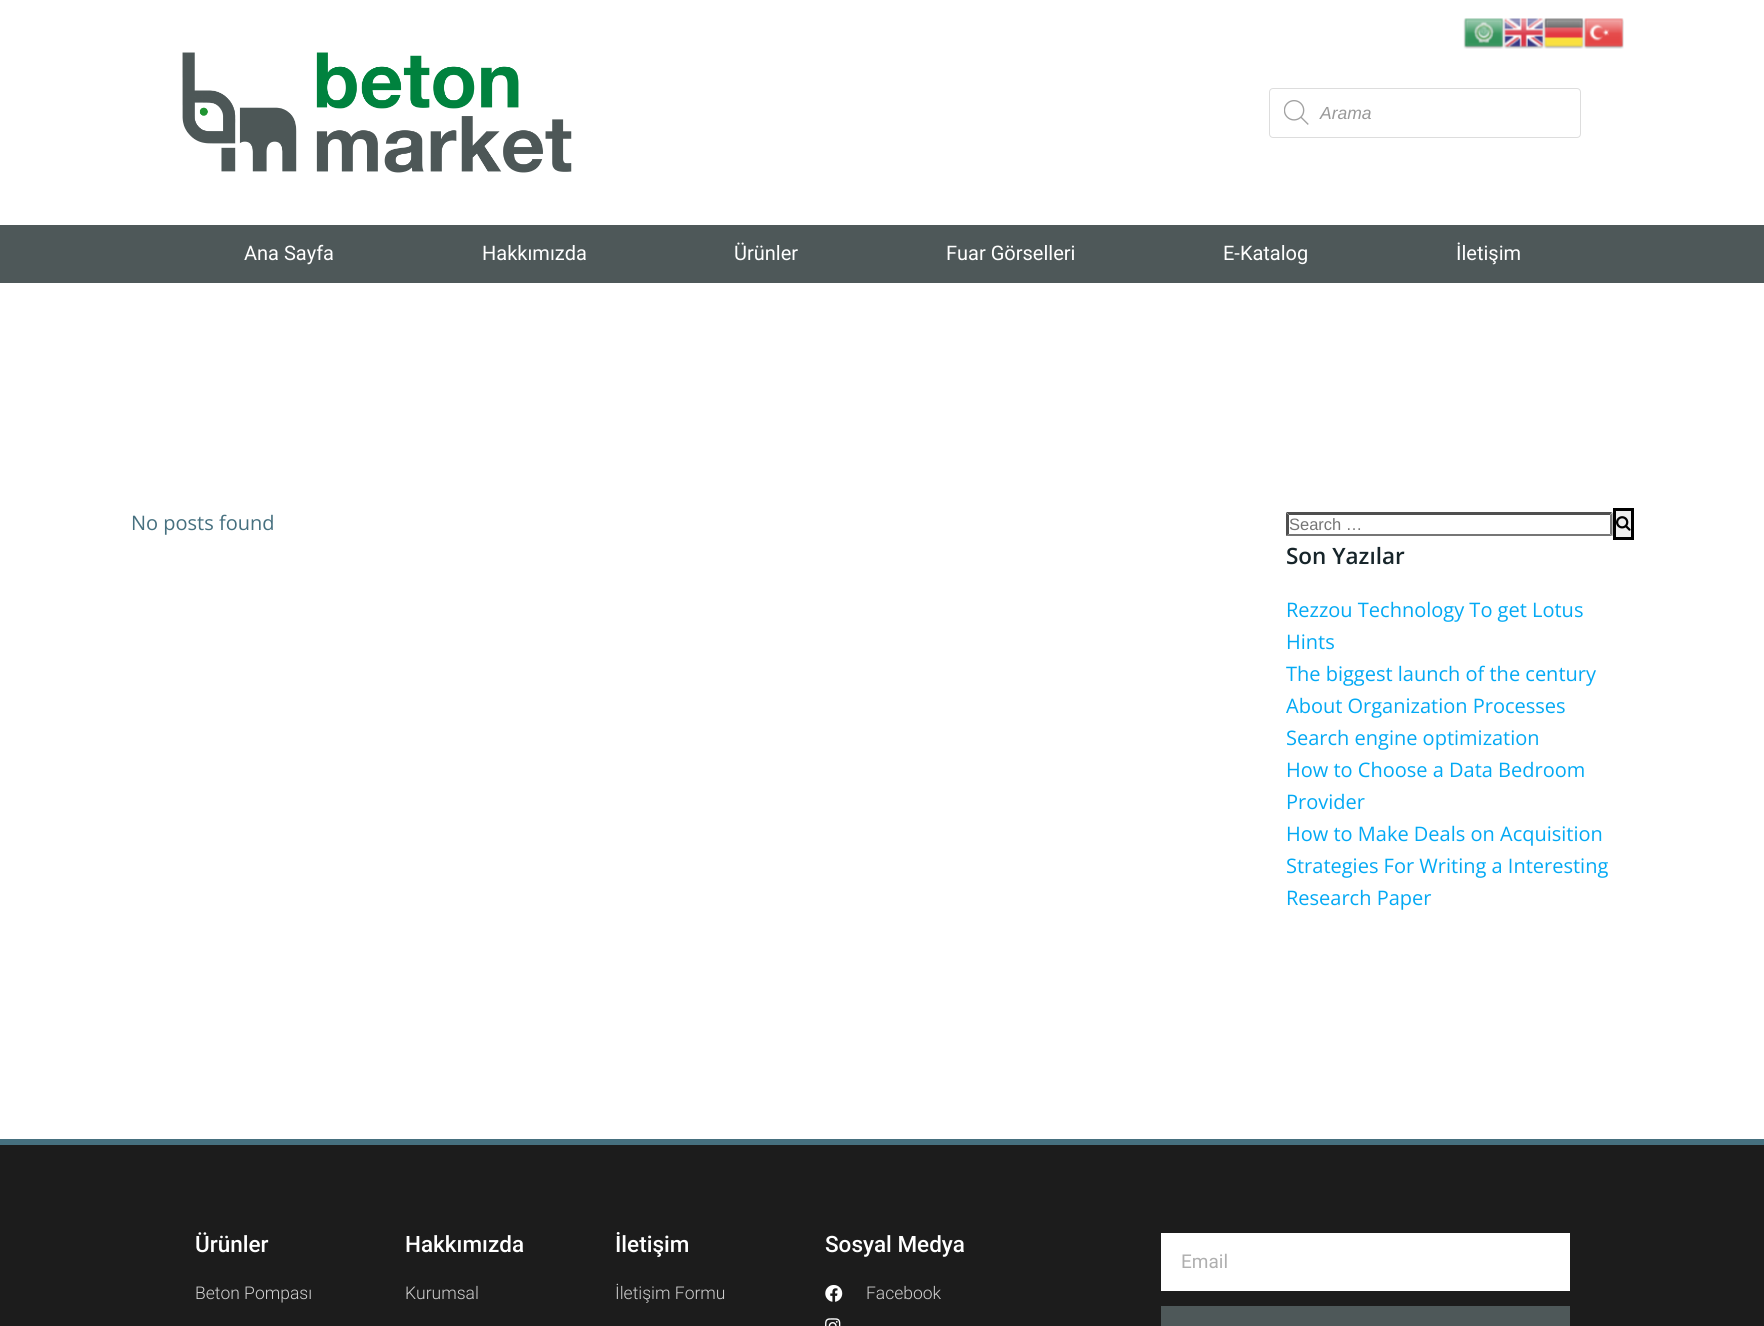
import math
import cairo

surface = cairo.ImageSurface(cairo.Format.RGB24, 1764, 1326)
ctx = cairo.Context(surface)
options = cairo.FontOptions()
options.set_hint_metrics(cairo.HintMetrics.OFF)
options.set_hint_style(cairo.HintStyle.NONE)
ctx.set_font_options(options)
ctx.set_miter_limit(4)


def ink(r, g, b):
    ctx.set_source_rgb(r / 255, g / 255, b / 255)


def write(x, y, s, family, size, color, bold=False, italic=False):
    ctx.select_font_face(family, cairo.FontSlant.ITALIC if italic else cairo.FontSlant.NORMAL, cairo.FontWeight.BOLD if bold else cairo.FontWeight.NORMAL)
    ctx.set_font_size(size)
    ink(*color)
    ctx.move_to(x, y)
    ctx.show_text(s)


def block(x, y, w, h, *color):
    ink(*color)
    ctx.rectangle(x, y, w, h)
    ctx.fill()


def round_path(x, y, w, h, r):
    ctx.new_sub_path()
    for i, (u, v) in enumerate([(x + w - r, y + h - r), (x + r, y + h - r), (x + r, y + r), (x + w - r, y + r)]):
        ctx.arc(u, v, r, i * math.pi / 2, (i + 1) * math.pi / 2)
    ctx.close_path()


def paste(path, x, y, w, h):
    ctx.save()
    ctx.set_source_surface(cairo.ImageSurface.create_from_png(path), x, y)
    ctx.rectangle(x, y, w, h)
    ctx.fill()
    ctx.restore()


s1 = dict(family="Liberation Sans", size=17.5, color=(153, 153, 153), italic=True)
s2 = dict(family="Roboto", size=20, color=(255, 255, 255))
s3 = dict(family="Open Sans", size=20, color=(70, 112, 127))
s4 = dict(family="Liberation Sans", size=16.5, color=(117, 117, 117))
s5 = dict(family="Open Sans SemiBold", size=22.5, color=(23, 37, 42))
s6 = dict(family="Open Sans", size=20, color=(3, 169, 244))
s7 = dict(family="Roboto Medium", size=22.5, color=(255, 255, 255))
s8 = dict(family="Roboto Light", size=17.5, color=(207, 207, 207))
s9 = dict(family="Roboto", size=19, color=(175, 175, 175))

ink(255, 255, 255)
ctx.paint()
paste("pic1.png", 1463, 18, 41, 31)
paste("pic2.png", 1503, 18, 41, 31)
paste("pic3.png", 1543, 18, 41, 31)
paste("pic4.png", 1583, 18, 41, 31)
paste("pic5.png", 182, 52, 390, 121)
round_path(1269.5, 88.5, 311, 49, 3.5)
ink(221, 221, 221)
ctx.set_line_width(1)
ctx.stroke()
paste("pic6.png", 1284, 100, 25, 25)
write(1320, 119, "Arama", **s1)
block(0, 225, 1764, 58, 78, 88, 89)
write(244, 260, "Ana Sayfa", **s2)
write(482, 260, "Hakkımızda", **s2)
write(734, 260, "Ürünler", **s2)
write(946, 260, "Fuar Görselleri", **s2)
write(1223, 260, "E-Katalog", **s2)
write(1456, 260, "İletişim", **s2)
write(131, 530, "No posts found", **s3)
ink(79, 79, 79)
ctx.new_path()
ctx.move_to(1286, 512)
ctx.line_to(1612, 512)
ctx.line_to(1610, 515)
ctx.line_to(1289, 515)
ctx.close_path()
ctx.fill()
ink(118, 118, 118)
ctx.new_path()
ctx.move_to(1612.5, 512.5)
ctx.line_to(1612.5, 536)
ctx.line_to(1610, 534)
ctx.line_to(1610, 515)
ctx.close_path()
ctx.fill()
ctx.new_path()
ctx.move_to(1612, 536)
ctx.line_to(1286, 536)
ctx.line_to(1289, 534)
ctx.line_to(1610, 534)
ctx.close_path()
ctx.fill()
ink(79, 79, 79)
ctx.new_path()
ctx.move_to(1286, 536)
ctx.line_to(1286, 512.5)
ctx.line_to(1289, 515)
ctx.line_to(1289, 534)
ctx.close_path()
ctx.fill()
write(1289, 530, "Search …", **s4)
ink(239, 239, 239)
ctx.rectangle(1614.5, 509.5, 18, 29)
ctx.fill_preserve()
ink(0, 0, 0)
ctx.set_line_width(3)
ctx.stroke()
paste("pic7.png", 1616, 516, 15, 15)
write(1286, 564, "Son Yazılar", **s5)
write(1286, 617, "Rezzou Technology To get Lotus", **s6)
write(1286, 649, "Hints", **s6)
write(1286, 681, "The biggest launch of the century", **s6)
write(1286, 713, "About Organization Processes", **s6)
write(1286, 745, "Search engine optimization", **s6)
write(1286, 777, "How to Choose a Data Bedroom", **s6)
write(1286, 809, "Provider", **s6)
write(1286, 841, "How to Make Deals on Acquisition", **s6)
write(1286, 873, "Strategies For Writing a Interesting", **s6)
write(1286, 905, "Research Paper", **s6)
block(0, 1145, 1764, 181, 28, 28, 28)
block(0, 1139, 1764, 6, 70, 112, 127)
write(195, 1252, "Ürünler", **s7)
write(195, 1299, "Beton Pompası", **s8)
write(405, 1252, "Hakkımızda", **s7)
write(405, 1299, "Kurumsal", **s8)
write(615, 1252, "İletişim", **s7)
write(615, 1299, "İletişim Formu", **s8)
write(825, 1252, "Sosyal Medya", **s7)
paste("pic8.png", 825, 1285, 18, 17)
write(866, 1299, "Facebook", **s8)
paste("pic9.png", 825, 1318, 16, 8)
block(1161, 1233, 409, 58, 255, 255, 255)
write(1181, 1268, "Email", **s9)
block(1161, 1306, 409, 20, 78, 88, 89)
surface.write_to_png("screenshot.png")
